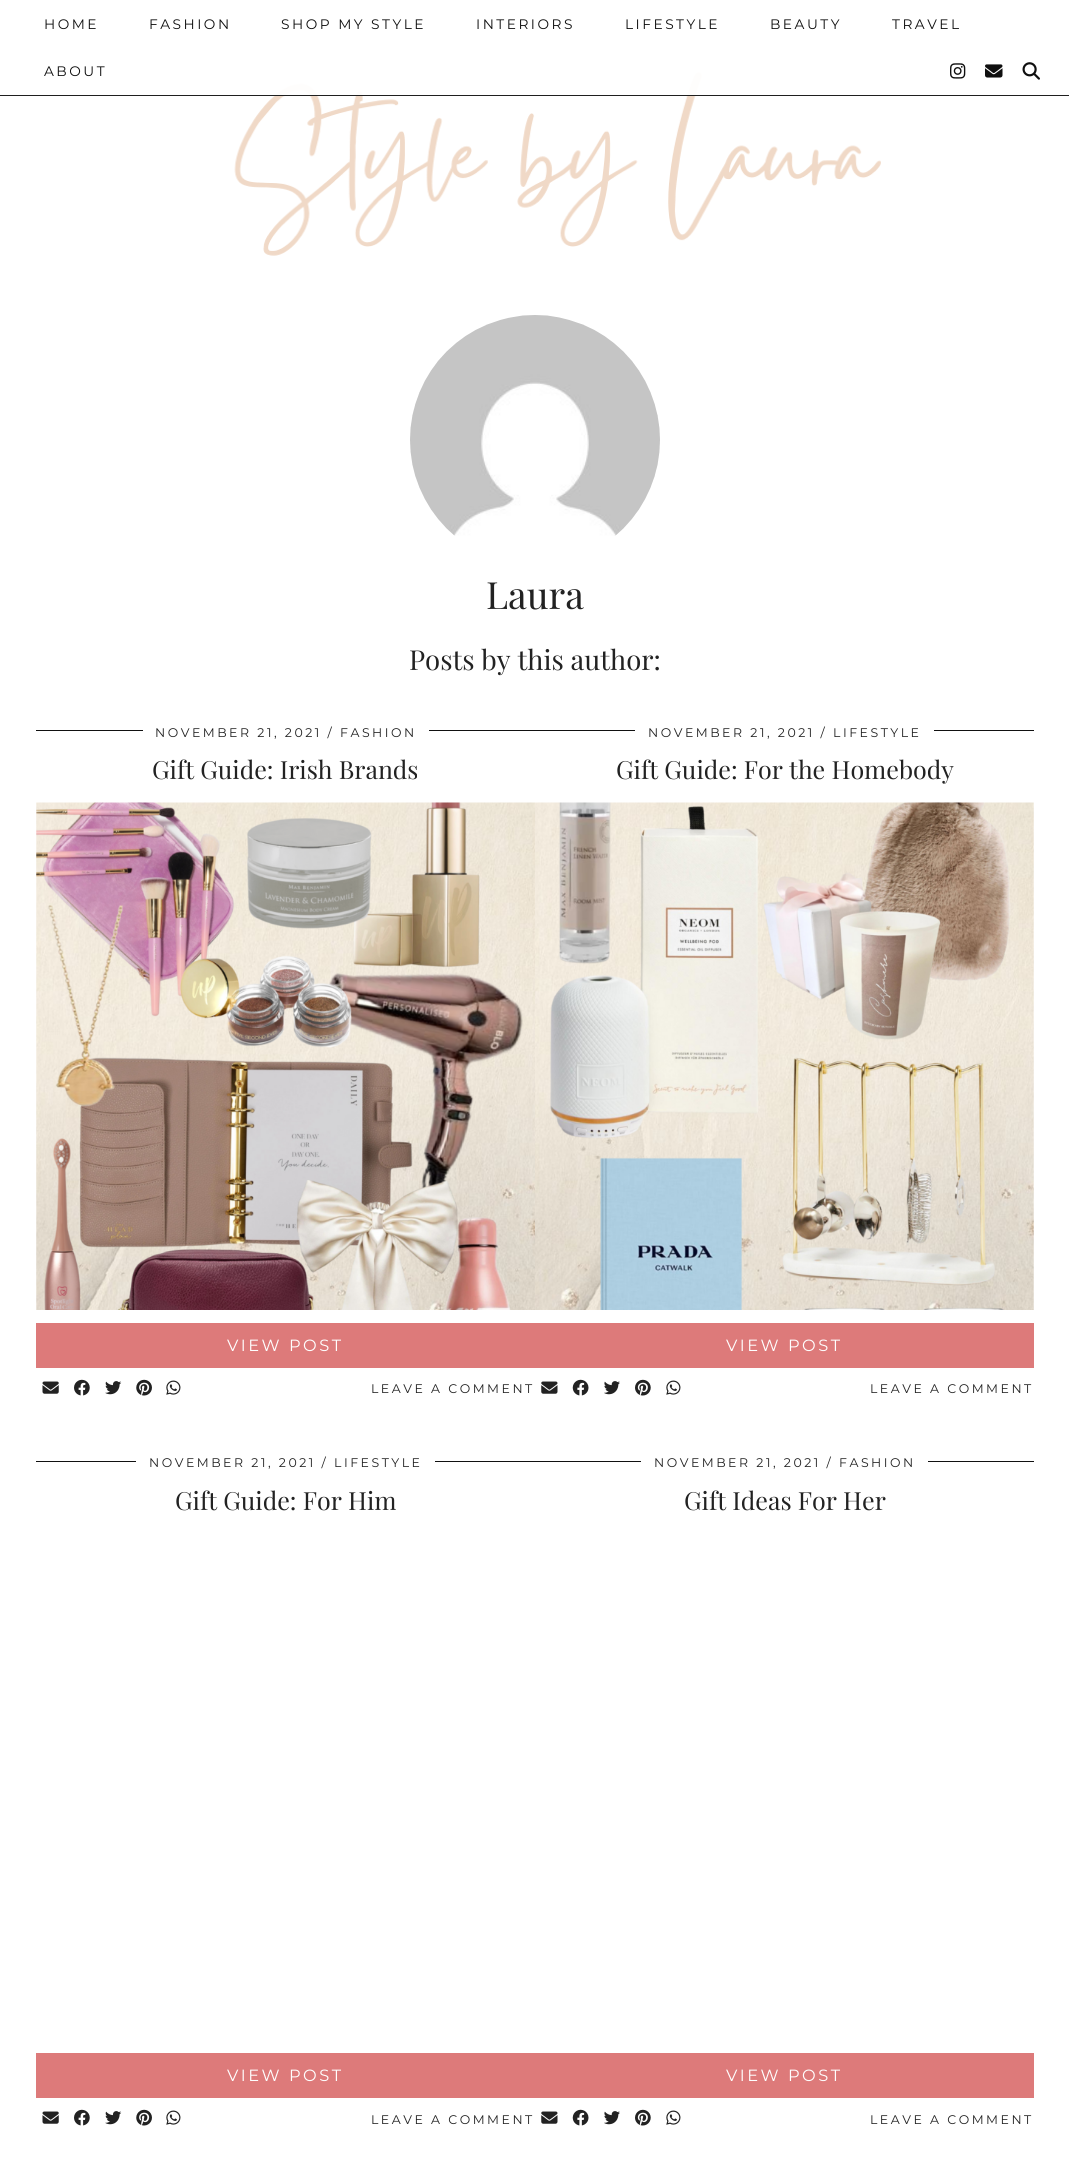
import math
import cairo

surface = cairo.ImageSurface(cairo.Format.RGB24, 1069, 2161)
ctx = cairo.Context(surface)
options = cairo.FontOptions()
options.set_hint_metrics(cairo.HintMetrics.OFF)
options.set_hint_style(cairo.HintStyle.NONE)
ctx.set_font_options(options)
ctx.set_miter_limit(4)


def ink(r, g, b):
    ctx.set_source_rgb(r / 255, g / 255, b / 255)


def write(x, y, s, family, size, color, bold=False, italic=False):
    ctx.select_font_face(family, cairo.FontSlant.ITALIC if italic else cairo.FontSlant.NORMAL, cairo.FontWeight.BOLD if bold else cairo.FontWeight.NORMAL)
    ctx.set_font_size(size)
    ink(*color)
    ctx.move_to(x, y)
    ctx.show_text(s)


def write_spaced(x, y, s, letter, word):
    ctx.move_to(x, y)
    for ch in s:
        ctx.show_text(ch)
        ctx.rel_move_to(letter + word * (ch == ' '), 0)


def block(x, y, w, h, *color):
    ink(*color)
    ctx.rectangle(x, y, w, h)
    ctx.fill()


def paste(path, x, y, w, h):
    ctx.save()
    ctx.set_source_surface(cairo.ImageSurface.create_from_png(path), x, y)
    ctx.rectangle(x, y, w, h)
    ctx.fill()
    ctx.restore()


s1 = dict(family="Playfair Display", size=37.5, color=(34, 34, 34))
s2 = dict(family="Playfair Display", size=27.5, color=(34, 34, 34))
s3 = dict(family="Playfair Display", size=25, color=(34, 34, 34))

ink(255, 255, 255)
ctx.paint()
paste("pic4.png", 234, 72, 647, 184)
ctx.set_source_rgba(1, 1, 1, 0.94)
ctx.rectangle(274, 72, 428, 24)
ctx.fill()
ctx.set_source_rgba(0.067, 0.067, 0.067, 0.94)
ctx.rectangle(0, 95, 1069, 1)
ctx.fill()
ctx.select_font_face("Montserrat Thin")
ctx.set_font_size(13.75)
ink(15, 15, 15)
write_spaced(44, 29, "HOME", 2.5, 0)
write_spaced(149, 29, "FASHION", 2.5, 0)
write_spaced(281, 29, "SHOP MY STYLE", 2.5, 0)
write_spaced(476, 29, "INTERIORS", 2.5, 0)
write_spaced(625, 29, "LIFESTYLE", 2.5, 0)
write_spaced(770, 29, "BEAUTY", 2.5, 0)
write_spaced(892, 29, "TRAVEL", 2.5, 0)
write_spaced(44, 76, "ABOUT", 2.5, 0)
paste("pic1.png", 950, 63, 16, 16)
paste("pic2.png", 985, 64, 18, 14)
paste("pic3.png", 1022, 62, 18, 18)
paste("pic5.png", 410, 315, 250, 221)
write(486, 609, "Laura", **s1)
write(409, 670, "Posts by this author:", **s2)
block(36, 730, 998, 1, 17, 17, 17)
block(143, 730, 178, 1, 255, 255, 255)
block(321, 724, 7, 7, 255, 255, 255)
block(328, 730, 101, 1, 255, 255, 255)
ctx.select_font_face("Montserrat Thin")
ctx.set_font_size(12.5)
ink(34, 34, 34)
write_spaced(155, 737, "NOVEMBER 21, 2021 / FASHION", 2.5, 0)
write(152, 779, "Gift Guide: Irish Brands", **s3)
paste("pic6.png", 36, 802, 499, 508)
block(36, 1323, 998, 45, 221, 122, 122)
ctx.select_font_face("Montserrat Thin")
ctx.set_font_size(16.25)
ink(255, 255, 255)
write_spaced(227, 1351, "VIEW POST", 2.5, 0)
paste("pic7.png", 42, 1381, 17, 13)
paste("pic8.png", 74, 1379, 16, 17)
paste("pic9.png", 105, 1381, 17, 14)
paste("pic10.png", 136, 1379, 16, 17)
paste("pic11.png", 166, 1380, 15, 15)
ctx.set_font_size(12.5)
ink(34, 34, 34)
write_spaced(371, 1393, "LEAVE A COMMENT", 2.5, 0)
block(635, 730, 180, 1, 255, 255, 255)
block(815, 724, 5, 7, 255, 255, 255)
block(820, 730, 114, 1, 255, 255, 255)
ink(34, 34, 34)
write_spaced(648, 737, "NOVEMBER 21, 2021 / LIFESTYLE", 2.5, 0)
write(616, 779, "Gift Guide: For the Homebody", **s3)
paste("pic12.png", 535, 802, 499, 508)
ctx.select_font_face("Montserrat Thin")
ctx.set_font_size(16.25)
ink(255, 255, 255)
write_spaced(726, 1351, "VIEW POST", 2.5, 0)
paste("pic13.png", 541, 1381, 17, 13)
paste("pic14.png", 572, 1379, 17, 17)
paste("pic15.png", 604, 1381, 16, 14)
paste("pic16.png", 635, 1379, 16, 17)
paste("pic11.png", 666, 1380, 15, 15)
ctx.set_font_size(12.5)
ink(34, 34, 34)
write_spaced(870, 1393, "LEAVE A COMMENT", 2.5, 0)
block(36, 1461, 998, 1, 17, 17, 17)
block(136, 1461, 179, 1, 255, 255, 255)
block(315, 1455, 6, 7, 255, 255, 255)
block(321, 1461, 114, 1, 255, 255, 255)
ink(34, 34, 34)
write_spaced(149, 1467, "NOVEMBER 21, 2021 / LIFESTYLE", 2.5, 0)
write(175, 1510, "Gift Guide: For Him", **s3)
block(36, 2053, 998, 45, 221, 122, 122)
ctx.select_font_face("Montserrat Thin")
ctx.set_font_size(16.25)
ink(255, 255, 255)
write_spaced(227, 2081, "VIEW POST", 2.5, 0)
paste("pic7.png", 42, 2111, 17, 13)
paste("pic8.png", 74, 2109, 16, 17)
paste("pic9.png", 105, 2111, 17, 14)
paste("pic10.png", 136, 2109, 16, 17)
paste("pic11.png", 166, 2110, 15, 15)
ctx.set_font_size(12.5)
ink(34, 34, 34)
write_spaced(371, 2124, "LEAVE A COMMENT", 2.5, 0)
block(641, 1461, 179, 1, 255, 255, 255)
block(820, 1455, 6, 7, 255, 255, 255)
block(826, 1461, 102, 1, 255, 255, 255)
ink(34, 34, 34)
write_spaced(654, 1467, "NOVEMBER 21, 2021 / FASHION", 2.5, 0)
write(684, 1510, "Gift Ideas For Her", **s3)
ctx.select_font_face("Montserrat Thin")
ctx.set_font_size(16.25)
ink(255, 255, 255)
write_spaced(726, 2081, "VIEW POST", 2.5, 0)
paste("pic13.png", 541, 2111, 17, 13)
paste("pic14.png", 572, 2109, 17, 17)
paste("pic15.png", 604, 2111, 16, 14)
paste("pic16.png", 635, 2109, 16, 17)
paste("pic11.png", 666, 2110, 15, 15)
ctx.set_font_size(12.5)
ink(34, 34, 34)
write_spaced(870, 2124, "LEAVE A COMMENT", 2.5, 0)
surface.write_to_png("screenshot.png")
